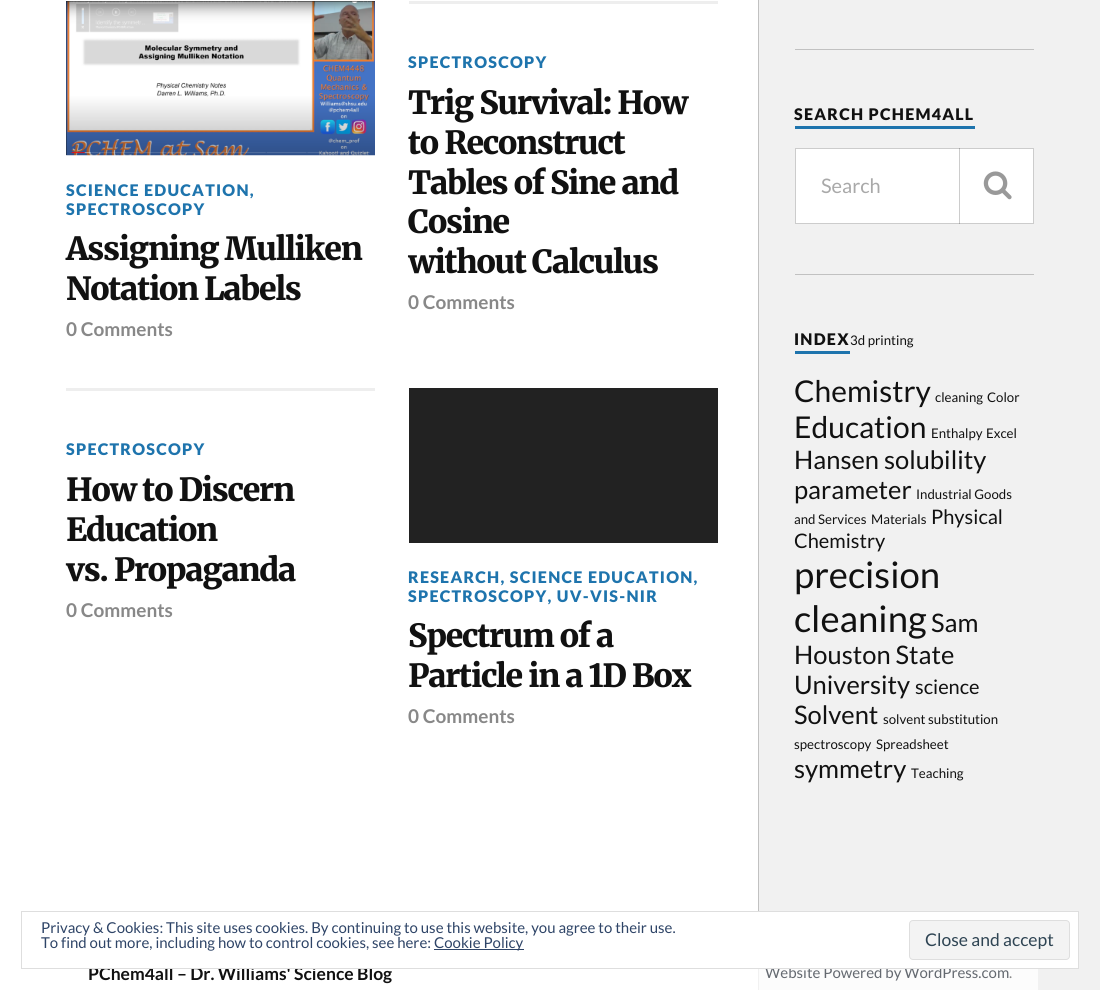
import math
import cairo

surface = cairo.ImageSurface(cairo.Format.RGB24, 1100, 990)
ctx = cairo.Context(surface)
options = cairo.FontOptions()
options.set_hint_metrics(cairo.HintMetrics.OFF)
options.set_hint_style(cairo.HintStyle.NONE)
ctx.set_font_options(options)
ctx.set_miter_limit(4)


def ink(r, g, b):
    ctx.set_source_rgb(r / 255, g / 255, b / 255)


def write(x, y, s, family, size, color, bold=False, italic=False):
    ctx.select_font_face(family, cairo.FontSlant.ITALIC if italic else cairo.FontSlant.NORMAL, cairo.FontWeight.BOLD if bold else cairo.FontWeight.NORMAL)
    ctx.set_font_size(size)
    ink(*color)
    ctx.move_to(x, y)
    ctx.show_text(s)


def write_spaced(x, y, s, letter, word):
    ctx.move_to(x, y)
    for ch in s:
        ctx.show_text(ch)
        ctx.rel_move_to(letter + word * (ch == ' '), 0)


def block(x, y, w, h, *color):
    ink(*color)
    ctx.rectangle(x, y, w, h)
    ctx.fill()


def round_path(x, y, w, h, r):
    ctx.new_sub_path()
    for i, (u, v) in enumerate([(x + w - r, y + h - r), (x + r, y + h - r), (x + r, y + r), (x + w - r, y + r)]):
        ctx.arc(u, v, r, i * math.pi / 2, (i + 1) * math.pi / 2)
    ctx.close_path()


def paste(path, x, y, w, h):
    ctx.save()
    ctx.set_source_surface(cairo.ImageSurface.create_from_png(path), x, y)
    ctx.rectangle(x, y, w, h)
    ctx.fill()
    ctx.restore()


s1 = dict(family="Lato", size=19, color=(136, 136, 136), bold=True)
s2 = dict(family="Lato", size=20, color=(169, 169, 169))
s3 = dict(family="Lato", size=13.25, color=(17, 17, 17))
s4 = dict(family="Lato", size=30, color=(17, 17, 17))
s5 = dict(family="Lato", size=25.5, color=(17, 17, 17))
s6 = dict(family="Lato", size=20, color=(17, 17, 17))
s7 = dict(family="Lato", size=36.5, color=(17, 17, 17))
s8 = dict(family="Lato", size=17.5, color=(17, 17, 17), bold=True)
s9 = dict(family="Lato", size=15, color=(100, 105, 112))
s10 = dict(family="Lato", size=15, color=(46, 68, 103))
s11 = dict(family="Lato", size=17.5, color=(46, 68, 83))
s12 = dict(family="Lato", size=15, color=(136, 136, 136))

ink(241, 241, 241)
ctx.paint()
block(759, 969, 279, 21, 252, 252, 252)
block(0, 0, 758, 990, 255, 255, 255)
block(66, 1, 309, 154, 34, 34, 34)
paste("pic1.png", 66, 1, 309, 155)
ctx.select_font_face("Lato Black")
ctx.set_font_size(16)
ink(30, 116, 173)
write_spaced(66, 196, "SCIENCE EDUCATION,", 1.25, 0)
write_spaced(66, 215, "SPECTROSCOPY", 1.25, 0)
ctx.select_font_face("Merriweather Black")
ctx.set_font_size(31.9)
ink(17, 17, 17)
write_spaced(66, 260, "Assigning Mulliken", -1.25, 0)
write_spaced(66, 300, "Notation Labels", -1.25, 0)
write(66, 336, "0 Comments", **s1)
block(409, 1, 309, 3, 238, 238, 238)
ctx.select_font_face("Lato Black")
ctx.set_font_size(16)
ink(30, 116, 173)
write_spaced(408, 68, "SPECTROSCOPY", 1.25, 0)
ctx.select_font_face("Merriweather Black")
ctx.set_font_size(31.9)
ink(17, 17, 17)
write_spaced(408, 114, "Trig Survival: How", -1.25, 0)
write_spaced(408, 154, "to Reconstruct", -1.25, 0)
write_spaced(408, 194, "Tables of Sine and", -1.25, 0)
write_spaced(408, 233, "Cosine", -1.25, 0)
write_spaced(408, 273, "without Calculus", -1.25, 0)
write(408, 309, "0 Comments", **s1)
block(66, 388, 309, 3, 238, 238, 238)
ctx.select_font_face("Lato Black")
ctx.set_font_size(16)
ink(30, 116, 173)
write_spaced(66, 455, "SPECTROSCOPY", 1.25, 0)
ctx.select_font_face("Merriweather Black")
ctx.set_font_size(31.9)
ink(17, 17, 17)
write_spaced(66, 501, "How to Discern", -1.25, 0)
write_spaced(66, 541, "Education", -1.25, 0)
write_spaced(66, 581, "vs. Propaganda", -1.25, 0)
write(66, 617, "0 Comments", **s1)
block(409, 388, 309, 155, 34, 34, 34)
ctx.select_font_face("Lato Black")
ctx.set_font_size(16)
ink(30, 116, 173)
write_spaced(408, 583, "RESEARCH, SCIENCE EDUCATION,", 1.25, 0)
write_spaced(408, 602, "SPECTROSCOPY, UV-VIS-NIR", 1.25, 0)
ctx.select_font_face("Merriweather Black")
ctx.set_font_size(31.9)
ink(17, 17, 17)
write_spaced(408, 647, "Spectrum of a", -1.25, 0)
write_spaced(408, 687, "Particle in a 1D Box", -1.25, 0)
write(408, 723, "0 Comments", **s1)
block(758, 0, 1, 911, 193, 193, 193)
block(795, 49, 239, 1, 193, 193, 193)
block(795, 126, 180, 3, 30, 116, 173)
ctx.select_font_face("Lato Black")
ctx.set_font_size(16)
ink(17, 17, 17)
write_spaced(794, 120, "SEARCH PCHEM4ALL", 1.25, 0)
ink(255, 255, 255)
ctx.rectangle(795.5, 148.5, 238, 75)
ctx.fill_preserve()
ink(204, 204, 204)
ctx.set_line_width(1)
ctx.stroke()
write(821, 193, "Search", **s2)
ctx.set_source_rgba(0, 0, 0, 0.2)
ctx.rectangle(959, 148, 1, 76)
ctx.fill()
paste("pic2.png", 983, 171, 29, 29)
block(795, 274, 239, 1, 193, 193, 193)
block(795, 351, 55, 3, 30, 116, 173)
ctx.select_font_face("Lato Black")
ctx.set_font_size(16)
ink(17, 17, 17)
write_spaced(794, 345, "INDEX", 1.25, 0)
write(850, 345, "3d printing", **s3)
write(794, 402, "Chemistry", **s4)
write(935, 402, "cleaning", **s3)
write(987, 402, "Color", **s3)
write(794, 438, "Education", **s4)
write(931, 438, "Enthalpy", **s3)
write(986, 438, "Excel", **s3)
write(794, 469, "Hansen solubility", **s5)
write(794, 499, "parameter", **s5)
write(916, 499, "Industrial Goods", **s3)
write(794, 524, "and Services", **s3)
write(871, 524, "Materials", **s3)
write(931, 524, "Physical", **s6)
write(794, 548, "Chemistry", **s6)
write(794, 588, "precision", **s7)
write(794, 632, "cleaning", **s7)
write(931, 632, "Sam", **s5)
write(794, 664, "Houston State", **s5)
write(794, 694, "University", **s5)
write(915, 694, "science", **s6)
write(794, 724, "Solvent", **s5)
write(883, 724, "solvent substitution", **s3)
write(794, 749, "spectroscopy", **s3)
write(876, 749, "Spreadsheet", **s3)
write(794, 778, "symmetry", **s5)
write(911, 778, "Teaching", **s3)
write(88, 980, "PChem4all – Dr. Williams' Science Blog", **s8)
write(765, 978, "Website Powered by WordPress.com", **s9)
block(88, 912, 990, 56, 255, 255, 255)
ctx.rectangle(21.5, 911.5, 1057, 57)
ink(222, 222, 222)
ctx.stroke()
write(41, 933, "Privacy & Cookies: This site uses cookies. By continuing to use this website, you agree to their use.", **s10)
write(41, 948, "To find out more, including how to control cookies, see here:", **s10)
block(434, 949, 90, 1, 46, 68, 103)
write(434, 948, "Cookie Policy", **s10)
ink(243, 243, 243)
round_path(909.5, 920.5, 160, 39, 3.5)
ctx.fill_preserve()
ink(222, 222, 222)
ctx.stroke()
write(925, 946, "Close and accept", **s11)
write(1009, 978, ".", **s12)
surface.write_to_png("screenshot.png")
